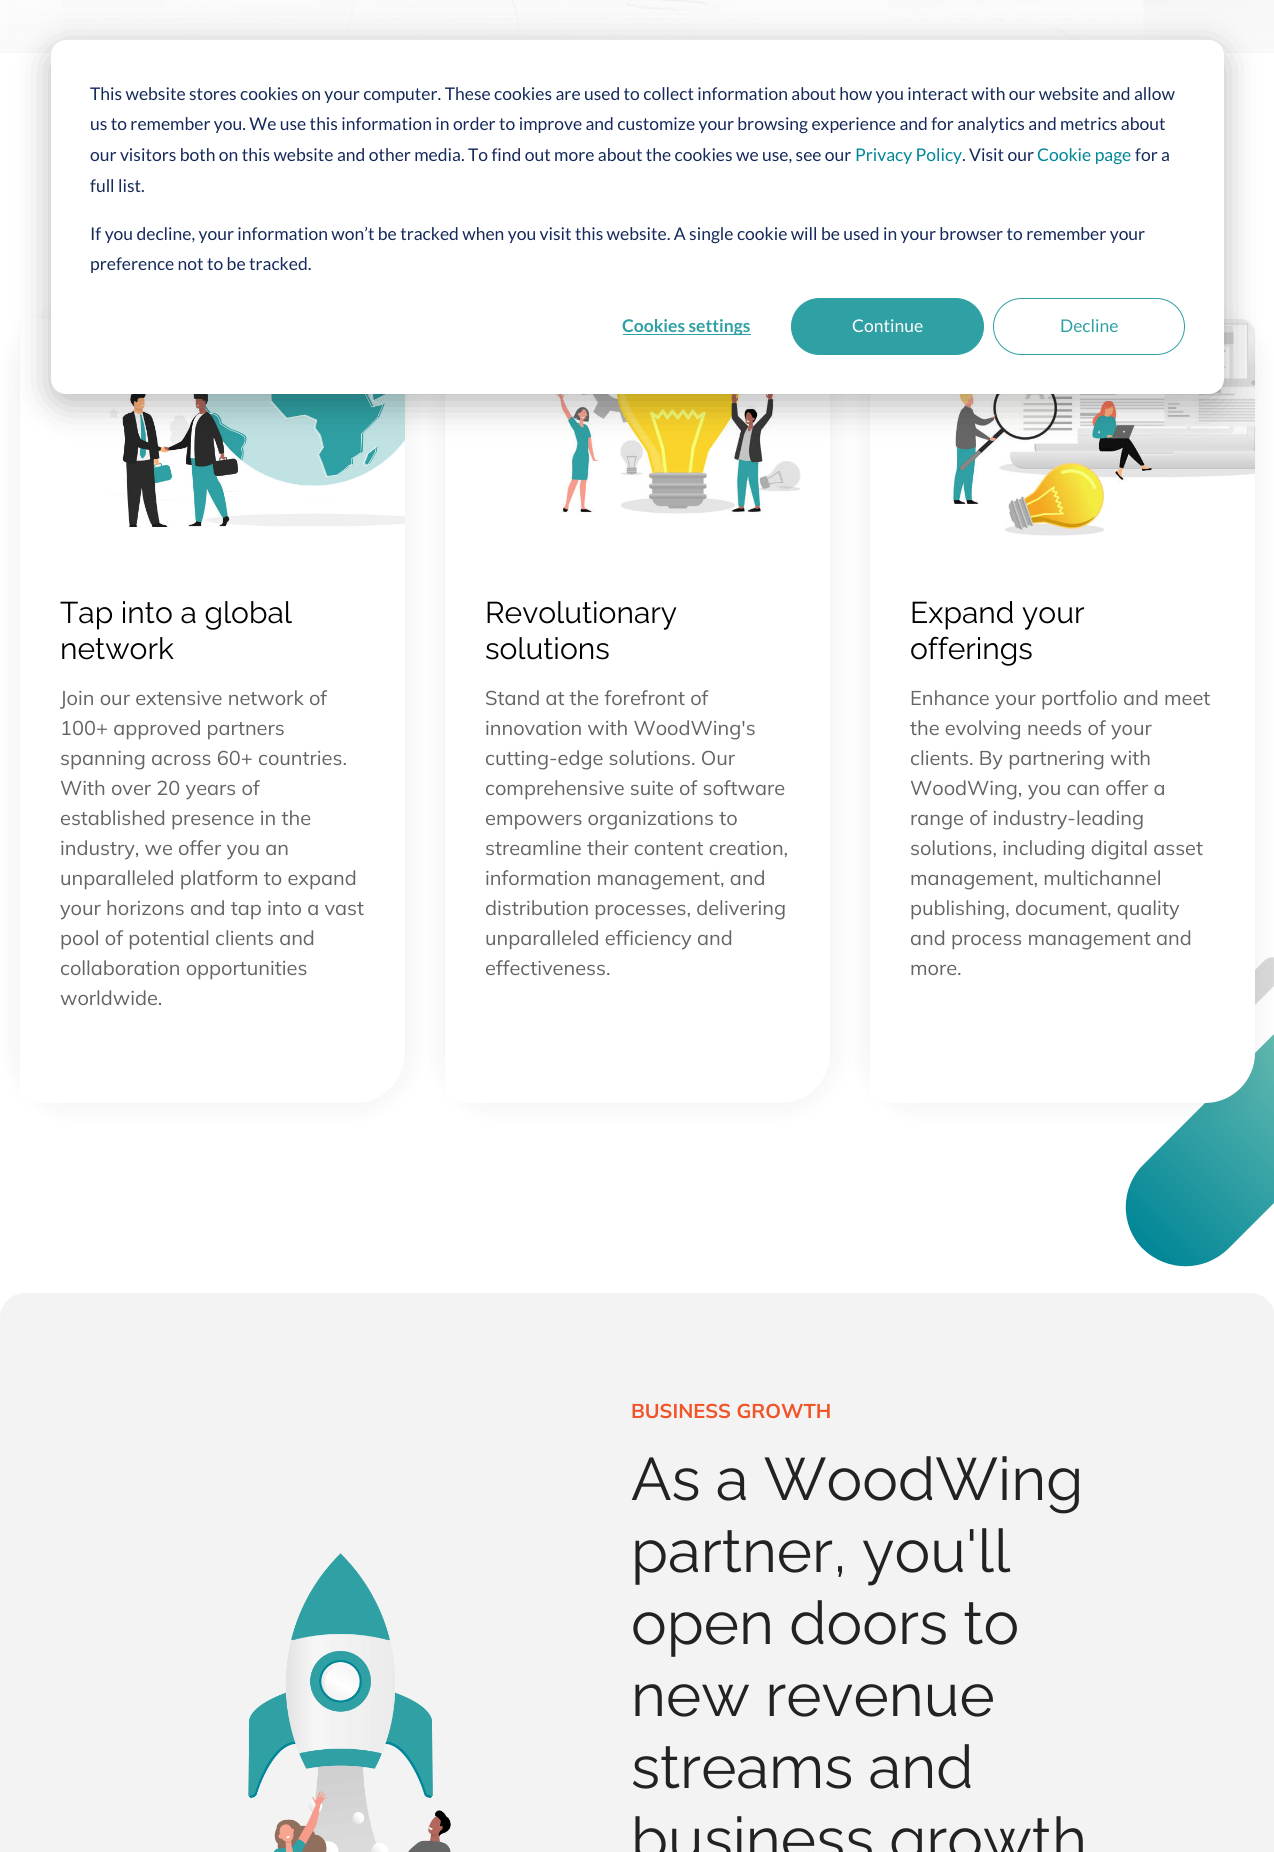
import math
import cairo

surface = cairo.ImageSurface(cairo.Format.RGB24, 1274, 1852)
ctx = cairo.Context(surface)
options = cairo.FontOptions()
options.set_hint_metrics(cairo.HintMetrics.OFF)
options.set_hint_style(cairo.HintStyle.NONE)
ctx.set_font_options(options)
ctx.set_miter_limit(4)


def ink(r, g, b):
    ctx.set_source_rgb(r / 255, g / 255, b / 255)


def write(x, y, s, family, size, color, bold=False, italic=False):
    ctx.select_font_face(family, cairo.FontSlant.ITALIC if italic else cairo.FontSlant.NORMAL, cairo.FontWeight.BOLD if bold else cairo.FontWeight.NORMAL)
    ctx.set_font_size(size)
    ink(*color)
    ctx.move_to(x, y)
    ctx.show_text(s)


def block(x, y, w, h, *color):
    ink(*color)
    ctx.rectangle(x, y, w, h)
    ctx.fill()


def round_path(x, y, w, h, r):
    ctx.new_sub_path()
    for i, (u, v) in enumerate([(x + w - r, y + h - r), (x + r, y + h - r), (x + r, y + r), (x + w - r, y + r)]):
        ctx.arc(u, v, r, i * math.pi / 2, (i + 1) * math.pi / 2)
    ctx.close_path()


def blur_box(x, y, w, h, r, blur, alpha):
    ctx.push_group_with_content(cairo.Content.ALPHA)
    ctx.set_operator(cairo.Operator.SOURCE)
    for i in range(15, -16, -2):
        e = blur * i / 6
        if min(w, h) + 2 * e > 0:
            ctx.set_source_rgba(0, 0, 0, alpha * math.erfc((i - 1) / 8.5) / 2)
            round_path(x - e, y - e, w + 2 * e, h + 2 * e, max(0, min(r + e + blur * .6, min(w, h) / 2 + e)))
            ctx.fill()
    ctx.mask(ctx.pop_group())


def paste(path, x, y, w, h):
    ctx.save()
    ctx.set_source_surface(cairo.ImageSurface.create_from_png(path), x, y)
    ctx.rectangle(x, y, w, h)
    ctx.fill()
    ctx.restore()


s1 = dict(family="Lato", size=17.5, color=(21, 41, 90))
s2 = dict(family="Lato", size=17.5, color=(0, 134, 151))
s3 = dict(family="Lato", size=17.5, color=(47, 160, 163), bold=True)
s4 = dict(family="Lato", size=17.5, color=(255, 255, 255))
s5 = dict(family="Lato", size=17.5, color=(47, 160, 163))
s6 = dict(family="Raleway", size=30, color=(0, 0, 0))
s7 = dict(family="Mulish", size=20, color=(100, 100, 100))
s8 = dict(family="Mulish", size=20, color=(240, 84, 40), bold=True)
s9 = dict(family="Raleway", size=60, color=(34, 34, 34))

ink(255, 255, 255)
ctx.paint()
paste("pic1.png", 7, 0, 1267, 52)
paste("pic2.png", 888, 0, 280, 21)
gradient = cairo.LinearGradient(638, -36, 638, 53)
gradient.add_color_stop_rgba(0, 0.976, 0.976, 0.976, 0)
gradient.add_color_stop_rgba(1, 0.976, 0.976, 0.976, 1)
ctx.set_source(gradient)
ctx.rectangle(0, 0, 1274, 53)
ctx.fill()
ink(16, 24, 40)
blur_box(20, 319, 385, 784, 50, 15, 0.08)
ink(255, 255, 255)
ctx.new_path()
ctx.move_to(35, 319)
ctx.line_to(390, 319)
ctx.curve_to(398.5, 319, 405, 325.5, 405, 334)
ctx.line_to(405, 1053)
ctx.curve_to(405, 1080.5, 382.5, 1103, 355, 1103)
ctx.line_to(35, 1103)
ctx.curve_to(26.5, 1103, 20, 1096.5, 20, 1088)
ctx.line_to(20, 334)
ctx.curve_to(20, 325.5, 26.5, 319, 35, 319)
ctx.close_path()
ctx.fill()
ink(16, 24, 40)
blur_box(445, 319, 385, 784, 50, 15, 0.08)
paste("pic3.png", 109, 394, 296, 134)
ink(255, 255, 255)
ctx.new_path()
ctx.move_to(460, 319)
ctx.line_to(815, 319)
ctx.curve_to(823.5, 319, 830, 325.5, 830, 334)
ctx.line_to(830, 1053)
ctx.curve_to(830, 1080.5, 807.5, 1103, 780, 1103)
ctx.line_to(460, 1103)
ctx.curve_to(451.5, 1103, 445, 1096.5, 445, 1088)
ctx.line_to(445, 334)
ctx.curve_to(445, 325.5, 451.5, 319, 460, 319)
ctx.close_path()
ctx.fill()
paste("pic4.png", 504, 394, 297, 120)
ink(217, 217, 217)
ctx.new_path()
ctx.move_to(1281, 961)
ctx.curve_to(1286, 966, 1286, 974, 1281, 979)
ctx.line_to(1187, 1073)
ctx.curve_to(1182, 1078, 1174, 1078, 1169, 1073)
ctx.curve_to(1164, 1069, 1164, 1061, 1169, 1056)
ctx.line_to(1264, 961)
ctx.curve_to(1269, 956, 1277, 956, 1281, 961)
ctx.close_path()
ctx.fill()
gradient = cairo.LinearGradient(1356, 1037, 1143, 1249)
gradient.add_color_stop_rgba(0, 0.478, 0.776, 0.714, 1)
gradient.add_color_stop_rgba(1, 0, 0.525, 0.592, 1)
ctx.set_source(gradient)
ctx.new_path()
ctx.move_to(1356, 1037)
ctx.curve_to(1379, 1060, 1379, 1098, 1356, 1121)
ctx.line_to(1228, 1249)
ctx.curve_to(1204, 1272, 1167, 1272, 1143, 1249)
ctx.curve_to(1120, 1226, 1120, 1188, 1143, 1165)
ctx.line_to(1271, 1037)
ctx.curve_to(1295, 1013, 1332, 1013, 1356, 1037)
ctx.close_path()
ctx.fill()
ink(16, 24, 40)
blur_box(870, 319, 385, 784, 50, 15, 0.08)
ink(255, 255, 255)
ctx.new_path()
ctx.move_to(885, 319)
ctx.line_to(1240, 319)
ctx.curve_to(1248.5, 319, 1255, 325.5, 1255, 334)
ctx.line_to(1255, 1053)
ctx.curve_to(1255, 1080.5, 1232.5, 1103, 1205, 1103)
ctx.line_to(885, 1103)
ctx.curve_to(876.5, 1103, 870, 1096.5, 870, 1088)
ctx.line_to(870, 334)
ctx.curve_to(870, 325.5, 876.5, 319, 885, 319)
ctx.close_path()
ctx.fill()
paste("pic5.png", 951, 319, 304, 217)
ink(0, 0, 0)
blur_box(51, 50, 1173, 354, 15, 17.5, 0.28)
ink(255, 255, 255)
round_path(51, 40, 1173, 354, 15)
ctx.fill()
write(90, 100, "This website stores cookies on your computer. These cookies are used to collect information about how you interact with our website and allow", **s1)
write(90, 130, "us to remember you. We use this information in order to improve and customize your browsing experience and for analytics and metrics about", **s1)
write(90, 161, "our visitors both on this website and other media. To find out more about the cookies we use, see our", **s1)
write(855, 161, "Privacy Policy", **s2)
write(962, 161, ". Visit our", **s1)
write(1037, 161, "Cookie page", **s2)
write(1135, 161, "for a", **s1)
write(90, 192, "full list.", **s1)
write(90, 240, "If you decline, your information won’t be tracked when you visit this website. A single cookie will be used in your browser to remember your", **s1)
write(90, 270, "preference not to be tracked.", **s1)
block(623, 334, 128, 1, 47, 160, 163)
write(622, 332, "Cookies settings", **s3)
round_path(791.5, 298.5, 192, 56, 28)
ctx.fill_preserve()
ctx.set_line_width(1)
ctx.stroke()
write(852, 332, "Continue", **s4)
round_path(993.5, 298.5, 191, 56, 28)
ink(47, 160, 163)
ctx.stroke()
write(1060, 332, "Decline", **s5)
write(60, 623, "Tap into a global", **s6)
write(60, 659, "network", **s6)
write(60, 705, "Join our extensive network of", **s7)
write(60, 735, "100+ approved partners", **s7)
write(60, 765, "spanning across 60+ countries.", **s7)
write(60, 795, "With over 20 years of", **s7)
write(60, 825, "established presence in the", **s7)
write(60, 855, "industry, we offer you an", **s7)
write(60, 885, "unparalleled platform to expand", **s7)
write(60, 915, "your horizons and tap into a vast", **s7)
write(60, 945, "pool of potential clients and", **s7)
write(60, 975, "collaboration opportunities", **s7)
write(60, 1005, "worldwide.", **s7)
write(485, 623, "Revolutionary", **s6)
write(485, 659, "solutions", **s6)
write(485, 705, "Stand at the forefront of", **s7)
write(485, 735, "innovation with WoodWing's", **s7)
write(485, 765, "cutting-edge solutions. Our", **s7)
write(485, 795, "comprehensive suite of software", **s7)
write(485, 825, "empowers organizations to", **s7)
write(485, 855, "streamline their content creation,", **s7)
write(485, 885, "information management, and", **s7)
write(485, 915, "distribution processes, delivering", **s7)
write(485, 945, "unparalleled efficiency and", **s7)
write(485, 975, "effectiveness.", **s7)
write(910, 623, "Expand your", **s6)
write(910, 659, "offerings", **s6)
write(910, 705, "Enhance your portfolio and meet", **s7)
write(910, 735, "the evolving needs of your", **s7)
write(910, 765, "clients. By partnering with", **s7)
write(910, 795, "WoodWing, you can offer a", **s7)
write(910, 825, "range of industry-leading", **s7)
write(910, 855, "solutions, including digital asset", **s7)
write(910, 885, "management, multichannel", **s7)
write(910, 915, "publishing, document, quality", **s7)
write(910, 945, "and process management and", **s7)
write(910, 975, "more.", **s7)
ink(243, 243, 243)
round_path(0, 1293, 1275, 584, 25)
ctx.fill()
paste("pic6.png", 248, 1553, 203, 299)
write(631, 1418, "BUSINESS GROWTH", **s8)
write(631, 1500, "As a WoodWing", **s9)
write(631, 1572, "partner, you'll", **s9)
write(631, 1644, "open doors to", **s9)
write(631, 1716, "new revenue", **s9)
write(631, 1788, "streams and", **s9)
write(631, 1860, "business growth", **s9)
surface.write_to_png("screenshot.png")
